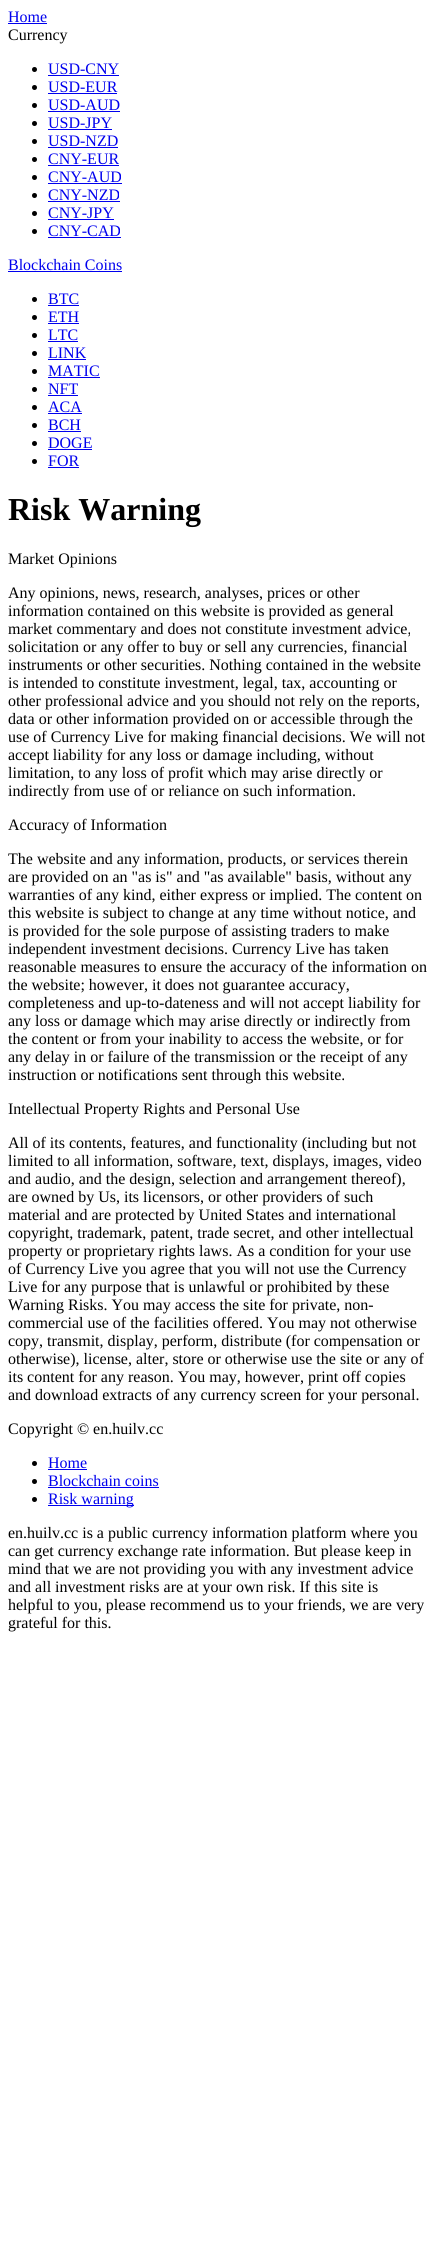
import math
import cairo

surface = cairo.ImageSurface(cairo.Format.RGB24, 435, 2244)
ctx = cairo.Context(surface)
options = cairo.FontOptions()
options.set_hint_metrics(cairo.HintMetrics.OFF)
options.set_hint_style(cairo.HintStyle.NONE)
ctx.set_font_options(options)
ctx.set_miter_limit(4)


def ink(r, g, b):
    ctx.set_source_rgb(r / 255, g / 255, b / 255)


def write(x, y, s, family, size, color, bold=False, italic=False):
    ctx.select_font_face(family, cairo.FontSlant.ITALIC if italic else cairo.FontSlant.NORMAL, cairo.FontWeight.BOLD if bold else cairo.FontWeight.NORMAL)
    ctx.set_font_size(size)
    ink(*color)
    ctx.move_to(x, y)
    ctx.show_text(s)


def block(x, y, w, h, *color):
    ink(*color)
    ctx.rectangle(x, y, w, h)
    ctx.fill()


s1 = dict(family="Liberation Serif", size=16, color=(0, 0, 238))
s2 = dict(family="Liberation Serif", size=16, color=(0, 0, 0))
s3 = dict(family="Liberation Serif", size=32, color=(0, 0, 0), bold=True)

ink(255, 255, 255)
ctx.paint()
write(8, 22, "Home", **s1)
block(8, 23, 39, 1, 0, 0, 238)
write(8, 40, "Currency", **s2)
ctx.new_path()
ctx.arc(34.5, 69.5, 2.5, 0, 2 * math.pi)
ctx.fill()
write(48, 74, "USD-CNY", **s1)
block(48, 75, 71, 1, 0, 0, 238)
ink(0, 0, 0)
ctx.new_path()
ctx.arc(34.5, 87.5, 2.5, 0, 2 * math.pi)
ctx.fill()
write(48, 92, "USD-EUR", **s1)
block(48, 93, 69, 1, 0, 0, 238)
ink(0, 0, 0)
ctx.new_path()
ctx.arc(34.5, 105.5, 2.5, 0, 2 * math.pi)
ctx.fill()
write(48, 110, "USD-AUD", **s1)
block(48, 111, 72, 1, 0, 0, 238)
ink(0, 0, 0)
ctx.new_path()
ctx.arc(34.5, 123.5, 2.5, 0, 2 * math.pi)
ctx.fill()
write(48, 128, "USD-JPY", **s1)
block(48, 129, 64, 1, 0, 0, 238)
ink(0, 0, 0)
ctx.new_path()
ctx.arc(34.5, 141.5, 2.5, 0, 2 * math.pi)
ctx.fill()
write(48, 146, "USD-NZD", **s1)
block(48, 147, 70, 1, 0, 0, 238)
ink(0, 0, 0)
ctx.new_path()
ctx.arc(34.5, 159.5, 2.5, 0, 2 * math.pi)
ctx.fill()
write(48, 164, "CNY-EUR", **s1)
block(48, 165, 71, 1, 0, 0, 238)
ink(0, 0, 0)
ctx.new_path()
ctx.arc(34.5, 177.5, 2.5, 0, 2 * math.pi)
ctx.fill()
write(48, 182, "CNY-AUD", **s1)
block(48, 183, 74, 1, 0, 0, 238)
ink(0, 0, 0)
ctx.new_path()
ctx.arc(34.5, 195.5, 2.5, 0, 2 * math.pi)
ctx.fill()
write(48, 200, "CNY-NZD", **s1)
block(48, 201, 72, 1, 0, 0, 238)
ink(0, 0, 0)
ctx.new_path()
ctx.arc(34.5, 213.5, 2.5, 0, 2 * math.pi)
ctx.fill()
write(48, 218, "CNY-JPY", **s1)
block(48, 219, 66, 1, 0, 0, 238)
ink(0, 0, 0)
ctx.new_path()
ctx.arc(34.5, 231.5, 2.5, 0, 2 * math.pi)
ctx.fill()
write(48, 236, "CNY-CAD", **s1)
block(48, 237, 73, 1, 0, 0, 238)
write(8, 270, "Blockchain Coins", **s1)
block(8, 271, 114, 1, 0, 0, 238)
ink(0, 0, 0)
ctx.new_path()
ctx.arc(34.5, 299.5, 2.5, 0, 2 * math.pi)
ctx.fill()
write(48, 304, "BTC", **s1)
block(48, 305, 31, 1, 0, 0, 238)
ink(0, 0, 0)
ctx.new_path()
ctx.arc(34.5, 317.5, 2.5, 0, 2 * math.pi)
ctx.fill()
write(48, 322, "ETH", **s1)
block(48, 323, 31, 1, 0, 0, 238)
ink(0, 0, 0)
ctx.new_path()
ctx.arc(34.5, 335.5, 2.5, 0, 2 * math.pi)
ctx.fill()
write(48, 340, "LTC", **s1)
block(48, 341, 30, 1, 0, 0, 238)
ink(0, 0, 0)
ctx.new_path()
ctx.arc(34.5, 353.5, 2.5, 0, 2 * math.pi)
ctx.fill()
write(48, 358, "LINK", **s1)
block(48, 359, 38, 1, 0, 0, 238)
ink(0, 0, 0)
ctx.new_path()
ctx.arc(34.5, 371.5, 2.5, 0, 2 * math.pi)
ctx.fill()
write(48, 376, "MATIC", **s1)
block(48, 377, 52, 1, 0, 0, 238)
ink(0, 0, 0)
ctx.new_path()
ctx.arc(34.5, 389.5, 2.5, 0, 2 * math.pi)
ctx.fill()
write(48, 394, "NFT", **s1)
block(48, 395, 30, 1, 0, 0, 238)
ink(0, 0, 0)
ctx.new_path()
ctx.arc(34.5, 407.5, 2.5, 0, 2 * math.pi)
ctx.fill()
write(48, 412, "ACA", **s1)
block(48, 413, 34, 1, 0, 0, 238)
ink(0, 0, 0)
ctx.new_path()
ctx.arc(34.5, 425.5, 2.5, 0, 2 * math.pi)
ctx.fill()
write(48, 430, "BCH", **s1)
block(48, 431, 33, 1, 0, 0, 238)
ink(0, 0, 0)
ctx.new_path()
ctx.arc(34.5, 443.5, 2.5, 0, 2 * math.pi)
ctx.fill()
write(48, 448, "DOGE", **s1)
block(48, 449, 44, 1, 0, 0, 238)
ink(0, 0, 0)
ctx.new_path()
ctx.arc(34.5, 461.5, 2.5, 0, 2 * math.pi)
ctx.fill()
write(48, 466, "FOR", **s1)
block(48, 467, 31, 1, 0, 0, 238)
write(8, 520, "Risk Warning", **s3)
write(8, 564, "Market Opinions", **s2)
write(8, 598, "Any opinions, news, research, analyses, prices or other", **s2)
write(8, 616, "information contained on this website is provided as general", **s2)
write(8, 634, "market commentary and does not constitute investment advice,", **s2)
write(8, 652, "solicitation or any offer to buy or sell any currencies, financial", **s2)
write(8, 670, "instruments or other securities. Nothing contained in the website", **s2)
write(8, 688, "is intended to constitute investment, legal, tax, accounting or", **s2)
write(8, 706, "other professional advice and you should not rely on the reports,", **s2)
write(8, 724, "data or other information provided on or accessible through the", **s2)
write(8, 742, "use of Currency Live for making financial decisions. We will not", **s2)
write(8, 760, "accept liability for any loss or damage including, without", **s2)
write(8, 778, "limitation, to any loss of profit which may arise directly or", **s2)
write(8, 796, "indirectly from use of or reliance on such information.", **s2)
write(8, 830, "Accuracy of Information", **s2)
write(8, 864, "The website and any information, products, or services therein", **s2)
write(8, 882, "are provided on an \"as is\" and \"as available\" basis, without any", **s2)
write(8, 900, "warranties of any kind, either express or implied. The content on", **s2)
write(8, 918, "this website is subject to change at any time without notice, and", **s2)
write(8, 936, "is provided for the sole purpose of assisting traders to make", **s2)
write(8, 954, "independent investment decisions. Currency Live has taken", **s2)
write(8, 972, "reasonable measures to ensure the accuracy of the information on", **s2)
write(8, 990, "the website; however, it does not guarantee accuracy,", **s2)
write(8, 1008, "completeness and up-to-dateness and will not accept liability for", **s2)
write(8, 1026, "any loss or damage which may arise directly or indirectly from", **s2)
write(8, 1044, "the content or from your inability to access the website, or for", **s2)
write(8, 1062, "any delay in or failure of the transmission or the receipt of any", **s2)
write(8, 1080, "instruction or notifications sent through this website.", **s2)
write(8, 1114, "Intellectual Property Rights and Personal Use", **s2)
write(8, 1148, "All of its contents, features, and functionality (including but not", **s2)
write(8, 1166, "limited to all information, software, text, displays, images, video", **s2)
write(8, 1184, "and audio, and the design, selection and arrangement thereof),", **s2)
write(8, 1202, "are owned by Us, its licensors, or other providers of such", **s2)
write(8, 1220, "material and are protected by United States and international", **s2)
write(8, 1238, "copyright, trademark, patent, trade secret, and other intellectual", **s2)
write(8, 1256, "property or proprietary rights laws. As a condition for your use", **s2)
write(8, 1274, "of Currency Live you agree that you will not use the Currency", **s2)
write(8, 1292, "Live for any purpose that is unlawful or prohibited by these", **s2)
write(8, 1310, "Warning Risks. You may access the site for private, non-", **s2)
write(8, 1328, "commercial use of the facilities offered. You may not otherwise", **s2)
write(8, 1346, "copy, transmit, display, perform, distribute (for compensation or", **s2)
write(8, 1364, "otherwise), license, alter, store or otherwise use the site or any of", **s2)
write(8, 1382, "its content for any reason. You may, however, print off copies", **s2)
write(8, 1400, "and download extracts of any currency screen for your personal.", **s2)
write(8, 1434, "Copyright © en.huilv.cc", **s2)
ctx.new_path()
ctx.arc(34.5, 1463.5, 2.5, 0, 2 * math.pi)
ctx.fill()
write(48, 1468, "Home", **s1)
block(48, 1469, 39, 1, 0, 0, 238)
ink(0, 0, 0)
ctx.new_path()
ctx.arc(34.5, 1481.5, 2.5, 0, 2 * math.pi)
ctx.fill()
write(48, 1486, "Blockchain coins", **s1)
block(48, 1487, 111, 1, 0, 0, 238)
ink(0, 0, 0)
ctx.new_path()
ctx.arc(34.5, 1499.5, 2.5, 0, 2 * math.pi)
ctx.fill()
block(48, 1505, 86, 1, 0, 0, 238)
write(48, 1504, "Risk warning", **s1)
write(8, 1538, "en.huilv.cc is a public currency information platform where you", **s2)
write(8, 1556, "can get currency exchange rate information. But please keep in", **s2)
write(8, 1574, "mind that we are not providing you with any investment advice", **s2)
write(8, 1592, "and all investment risks are at your own risk. If this site is", **s2)
write(8, 1610, "helpful to you, please recommend us to your friends, we are very", **s2)
write(8, 1628, "grateful for this.", **s2)
surface.write_to_png("screenshot.png")
